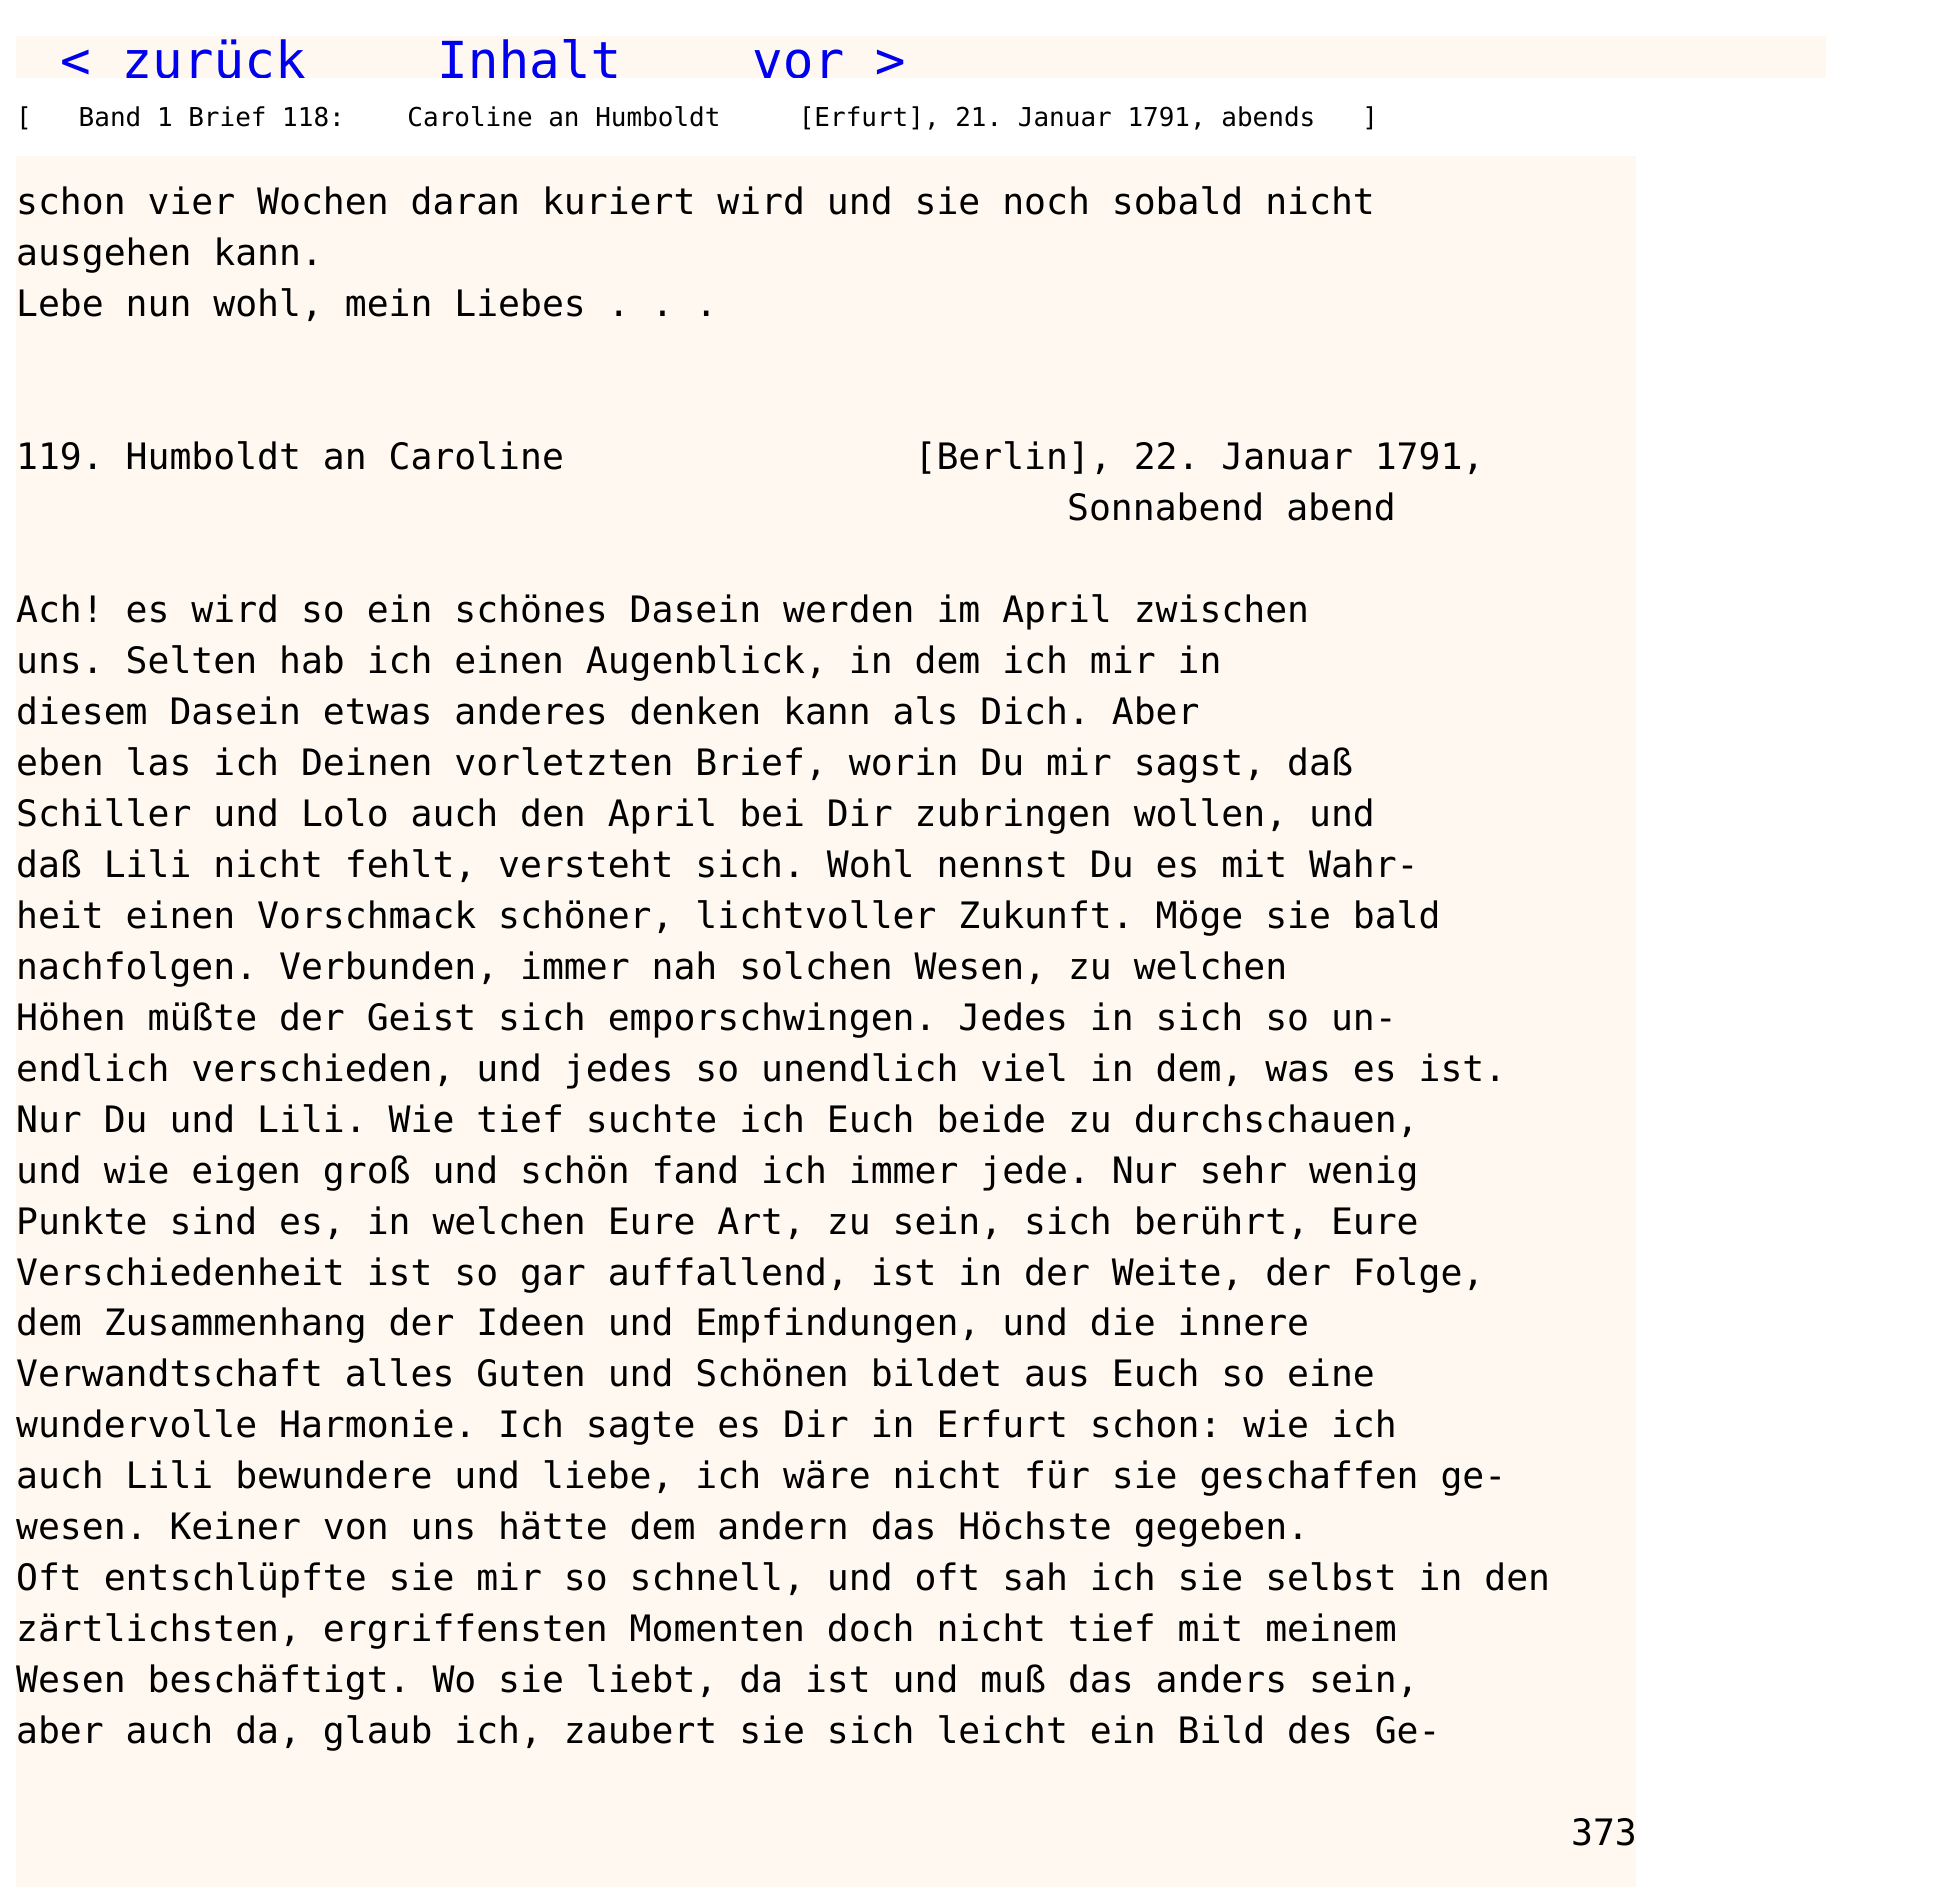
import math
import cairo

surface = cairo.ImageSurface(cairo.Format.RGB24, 1960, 1887)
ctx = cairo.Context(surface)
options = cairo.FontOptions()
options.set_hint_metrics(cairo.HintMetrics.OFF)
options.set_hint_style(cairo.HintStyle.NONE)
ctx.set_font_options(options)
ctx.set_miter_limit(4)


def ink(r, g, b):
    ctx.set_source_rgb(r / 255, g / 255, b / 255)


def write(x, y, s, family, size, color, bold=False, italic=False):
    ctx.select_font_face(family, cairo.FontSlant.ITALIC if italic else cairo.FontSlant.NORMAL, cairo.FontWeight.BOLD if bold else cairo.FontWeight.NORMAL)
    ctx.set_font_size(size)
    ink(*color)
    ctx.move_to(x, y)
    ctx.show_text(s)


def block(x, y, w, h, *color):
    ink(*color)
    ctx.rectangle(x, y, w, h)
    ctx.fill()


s1 = dict(family="DejaVu Sans Mono", size=51, color=(0, 0, 238))
s2 = dict(family="DejaVu Sans Mono", size=26, color=(0, 0, 0))
s3 = dict(family="DejaVu Sans Mono", size=36.4, color=(0, 0, 0))

ink(255, 255, 255)
ctx.paint()
block(16, 36, 1810, 42, 255, 248, 240)
write(60, 78, "< zurück", **s1)
write(437, 78, "Inhalt", **s1)
write(752, 78, "vor >", **s1)
block(161, 78, 642, 1, 255, 255, 255)
write(16, 126, "[   Band 1 Brief 118:    Caroline an Humboldt     [Erfurt], 21. Januar 1791, abends   ]", **s2)
block(16, 156, 1620, 1731, 255, 248, 240)
write(16, 214, "schon vier Wochen daran kuriert wird und sie noch sobald nicht", **s3)
write(16, 265, "ausgehen kann.", **s3)
write(16, 316, "Lebe nun wohl, mein Liebes . . .", **s3)
write(16, 469, "119. Humboldt an Caroline                [Berlin], 22. Januar 1791,", **s3)
write(1067, 520, "Sonnabend abend", **s3)
write(16, 622, "Ach! es wird so ein schönes Dasein werden im April zwischen", **s3)
write(16, 673, "uns. Selten hab ich einen Augenblick, in dem ich mir in", **s3)
write(16, 724, "diesem Dasein etwas anderes denken kann als Dich. Aber", **s3)
write(16, 775, "eben las ich Deinen vorletzten Brief, worin Du mir sagst, daß", **s3)
write(16, 826, "Schiller und Lolo auch den April bei Dir zubringen wollen, und", **s3)
write(16, 877, "daß Lili nicht fehlt, versteht sich. Wohl nennst Du es mit Wahr-", **s3)
write(16, 928, "heit einen Vorschmack schöner, lichtvoller Zukunft. Möge sie bald", **s3)
write(16, 979, "nachfolgen. Verbunden, immer nah solchen Wesen, zu welchen", **s3)
write(16, 1030, "Höhen müßte der Geist sich emporschwingen. Jedes in sich so un-", **s3)
write(16, 1081, "endlich verschieden, und jedes so unendlich viel in dem, was es ist.", **s3)
write(16, 1132, "Nur Du und Lili. Wie tief suchte ich Euch beide zu durchschauen,", **s3)
write(16, 1183, "und wie eigen groß und schön fand ich immer jede. Nur sehr wenig", **s3)
write(16, 1234, "Punkte sind es, in welchen Eure Art, zu sein, sich berührt, Eure", **s3)
write(16, 1285, "Verschiedenheit ist so gar auffallend, ist in der Weite, der Folge,", **s3)
write(16, 1335, "dem Zusammenhang der Ideen und Empfindungen, und die innere", **s3)
write(16, 1386, "Verwandtschaft alles Guten und Schönen bildet aus Euch so eine", **s3)
write(16, 1437, "wundervolle Harmonie. Ich sagte es Dir in Erfurt schon: wie ich", **s3)
write(16, 1488, "auch Lili bewundere und liebe, ich wäre nicht für sie geschaffen ge-", **s3)
write(16, 1539, "wesen. Keiner von uns hätte dem andern das Höchste gegeben.", **s3)
write(16, 1590, "Oft entschlüpfte sie mir so schnell, und oft sah ich sie selbst in den", **s3)
write(16, 1641, "zärtlichsten, ergriffensten Momenten doch nicht tief mit meinem", **s3)
write(16, 1692, "Wesen beschäftigt. Wo sie liebt, da ist und muß das anders sein,", **s3)
write(16, 1743, "aber auch da, glaub ich, zaubert sie sich leicht ein Bild des Ge-", **s3)
write(1571, 1845, "373", **s3)
surface.write_to_png("screenshot.png")
